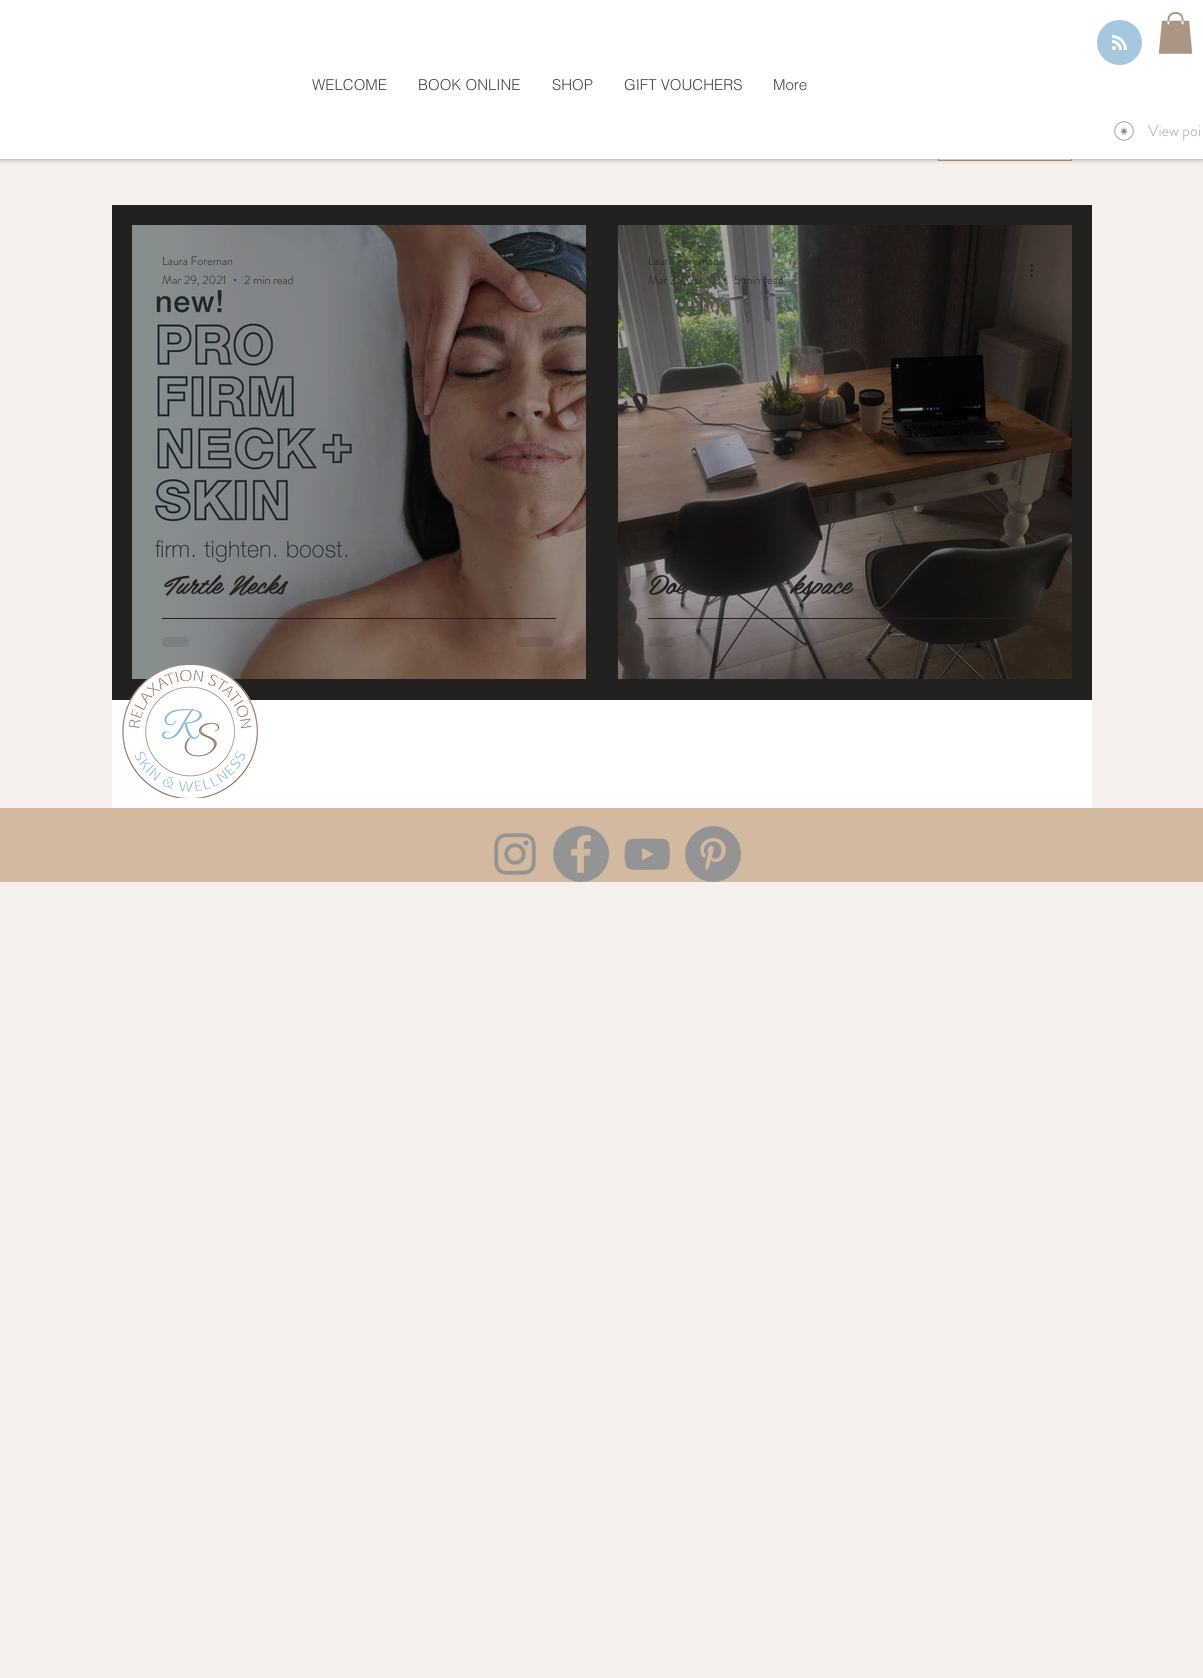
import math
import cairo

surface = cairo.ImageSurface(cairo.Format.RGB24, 1203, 1678)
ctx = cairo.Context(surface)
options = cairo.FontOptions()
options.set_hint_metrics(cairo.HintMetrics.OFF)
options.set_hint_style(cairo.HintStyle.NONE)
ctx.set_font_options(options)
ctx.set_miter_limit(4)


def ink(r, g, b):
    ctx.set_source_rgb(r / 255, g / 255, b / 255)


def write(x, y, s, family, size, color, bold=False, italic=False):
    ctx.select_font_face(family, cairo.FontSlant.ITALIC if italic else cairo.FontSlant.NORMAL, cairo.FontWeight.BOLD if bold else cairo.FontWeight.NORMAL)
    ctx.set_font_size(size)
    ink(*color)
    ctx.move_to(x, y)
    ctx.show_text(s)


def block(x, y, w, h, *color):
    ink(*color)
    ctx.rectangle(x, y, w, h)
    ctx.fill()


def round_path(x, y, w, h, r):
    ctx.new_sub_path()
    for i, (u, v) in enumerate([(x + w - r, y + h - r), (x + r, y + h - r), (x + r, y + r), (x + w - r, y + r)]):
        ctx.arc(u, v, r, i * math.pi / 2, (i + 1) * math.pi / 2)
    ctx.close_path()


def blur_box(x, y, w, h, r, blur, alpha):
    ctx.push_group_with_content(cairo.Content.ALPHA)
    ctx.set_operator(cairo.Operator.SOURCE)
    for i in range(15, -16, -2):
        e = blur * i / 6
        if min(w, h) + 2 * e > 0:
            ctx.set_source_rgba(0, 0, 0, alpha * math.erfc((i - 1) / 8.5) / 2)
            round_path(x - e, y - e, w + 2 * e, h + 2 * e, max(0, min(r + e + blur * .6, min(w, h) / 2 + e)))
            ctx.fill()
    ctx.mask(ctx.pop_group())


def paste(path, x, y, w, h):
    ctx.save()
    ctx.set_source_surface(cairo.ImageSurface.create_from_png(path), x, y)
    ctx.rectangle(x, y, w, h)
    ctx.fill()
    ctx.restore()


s1 = dict(family="helvetica Light", size=15, color=(68, 68, 68))
s2 = dict(family="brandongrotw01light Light", size=16, color=(161, 160, 158))
s3 = dict(family="brandongrotw01light Light", size=12, color=(34, 33, 32))
s4 = dict(family="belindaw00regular", size=26, color=(34, 33, 32), italic=True)

ink(244, 240, 238)
ctx.paint()
ctx.rectangle(938.5, 125.5, 133, 35)
ink(188, 153, 121)
ctx.set_line_width(1)
ctx.stroke()
ink(34, 33, 32)
blur_box(0, 0, 1203, 159, 0, 2.5, 0.5)
block(0, 0, 1203, 159, 255, 255, 255)
paste("pic1.png", 1097, 20, 45, 45)
paste("pic2.png", 1158, 12, 35, 42)
write(312, 90, "WELCOME", **s1)
write(418, 90, "BOOK ONLINE", **s1)
write(552, 90, "SHOP", **s1)
write(624, 90, "GIFT VOUCHERS", **s1)
write(773, 90, "More", **s1)
paste("pic3.png", 1114, 121, 20, 20)
write(1148, 136, "View poi", **s2)
block(112, 205, 980, 495, 34, 33, 32)
paste("pic4.png", 132, 225, 454, 454)
write(162, 265, "Laura Foreman", **s3)
write(162, 284, "Mar 29, 2021", **s3)
ctx.new_path()
ctx.arc(235, 280, 1, 0, 2 * math.pi)
ctx.fill()
write(244, 284, "2 min read", **s3)
paste("pic5.png", 544, 264, 3, 13)
write(162, 594, "Turtle Necks", **s4)
block(162, 618, 394, 1, 34, 33, 32)
ctx.set_source_rgba(0.133, 0.129, 0.125, 0.12)
round_path(162, 637, 27, 10, 5)
ctx.fill()
round_path(516, 637, 37, 10, 5)
ctx.fill()
paste("pic6.png", 618, 225, 454, 454)
write(648, 265, "Laura Foreman", **s3)
write(648, 284, "Mar 23, 2020", **s3)
ctx.new_path()
ctx.arc(725, 280, 1, 0, 2 * math.pi)
ctx.fill()
write(734, 284, "5 min read", **s3)
paste("pic7.png", 1030, 264, 3, 13)
write(648, 594, "Doe", **s4)
write(790, 594, "kspace", **s4)
block(648, 618, 394, 1, 34, 33, 32)
ctx.set_source_rgba(0.133, 0.129, 0.125, 0.12)
round_path(648, 637, 27, 10, 5)
ctx.fill()
round_path(1002, 637, 37, 10, 5)
ctx.fill()
block(112, 700, 980, 108, 255, 255, 255)
paste("pic8.png", 122, 665, 136, 133)
block(0, 808, 1203, 74, 212, 185, 161)
paste("pic9.png", 494, 833, 42, 42)
paste("pic10.png", 553, 826, 56, 56)
paste("pic11.png", 624, 838, 46, 32)
paste("pic12.png", 685, 826, 56, 56)
surface.write_to_png("screenshot.png")
